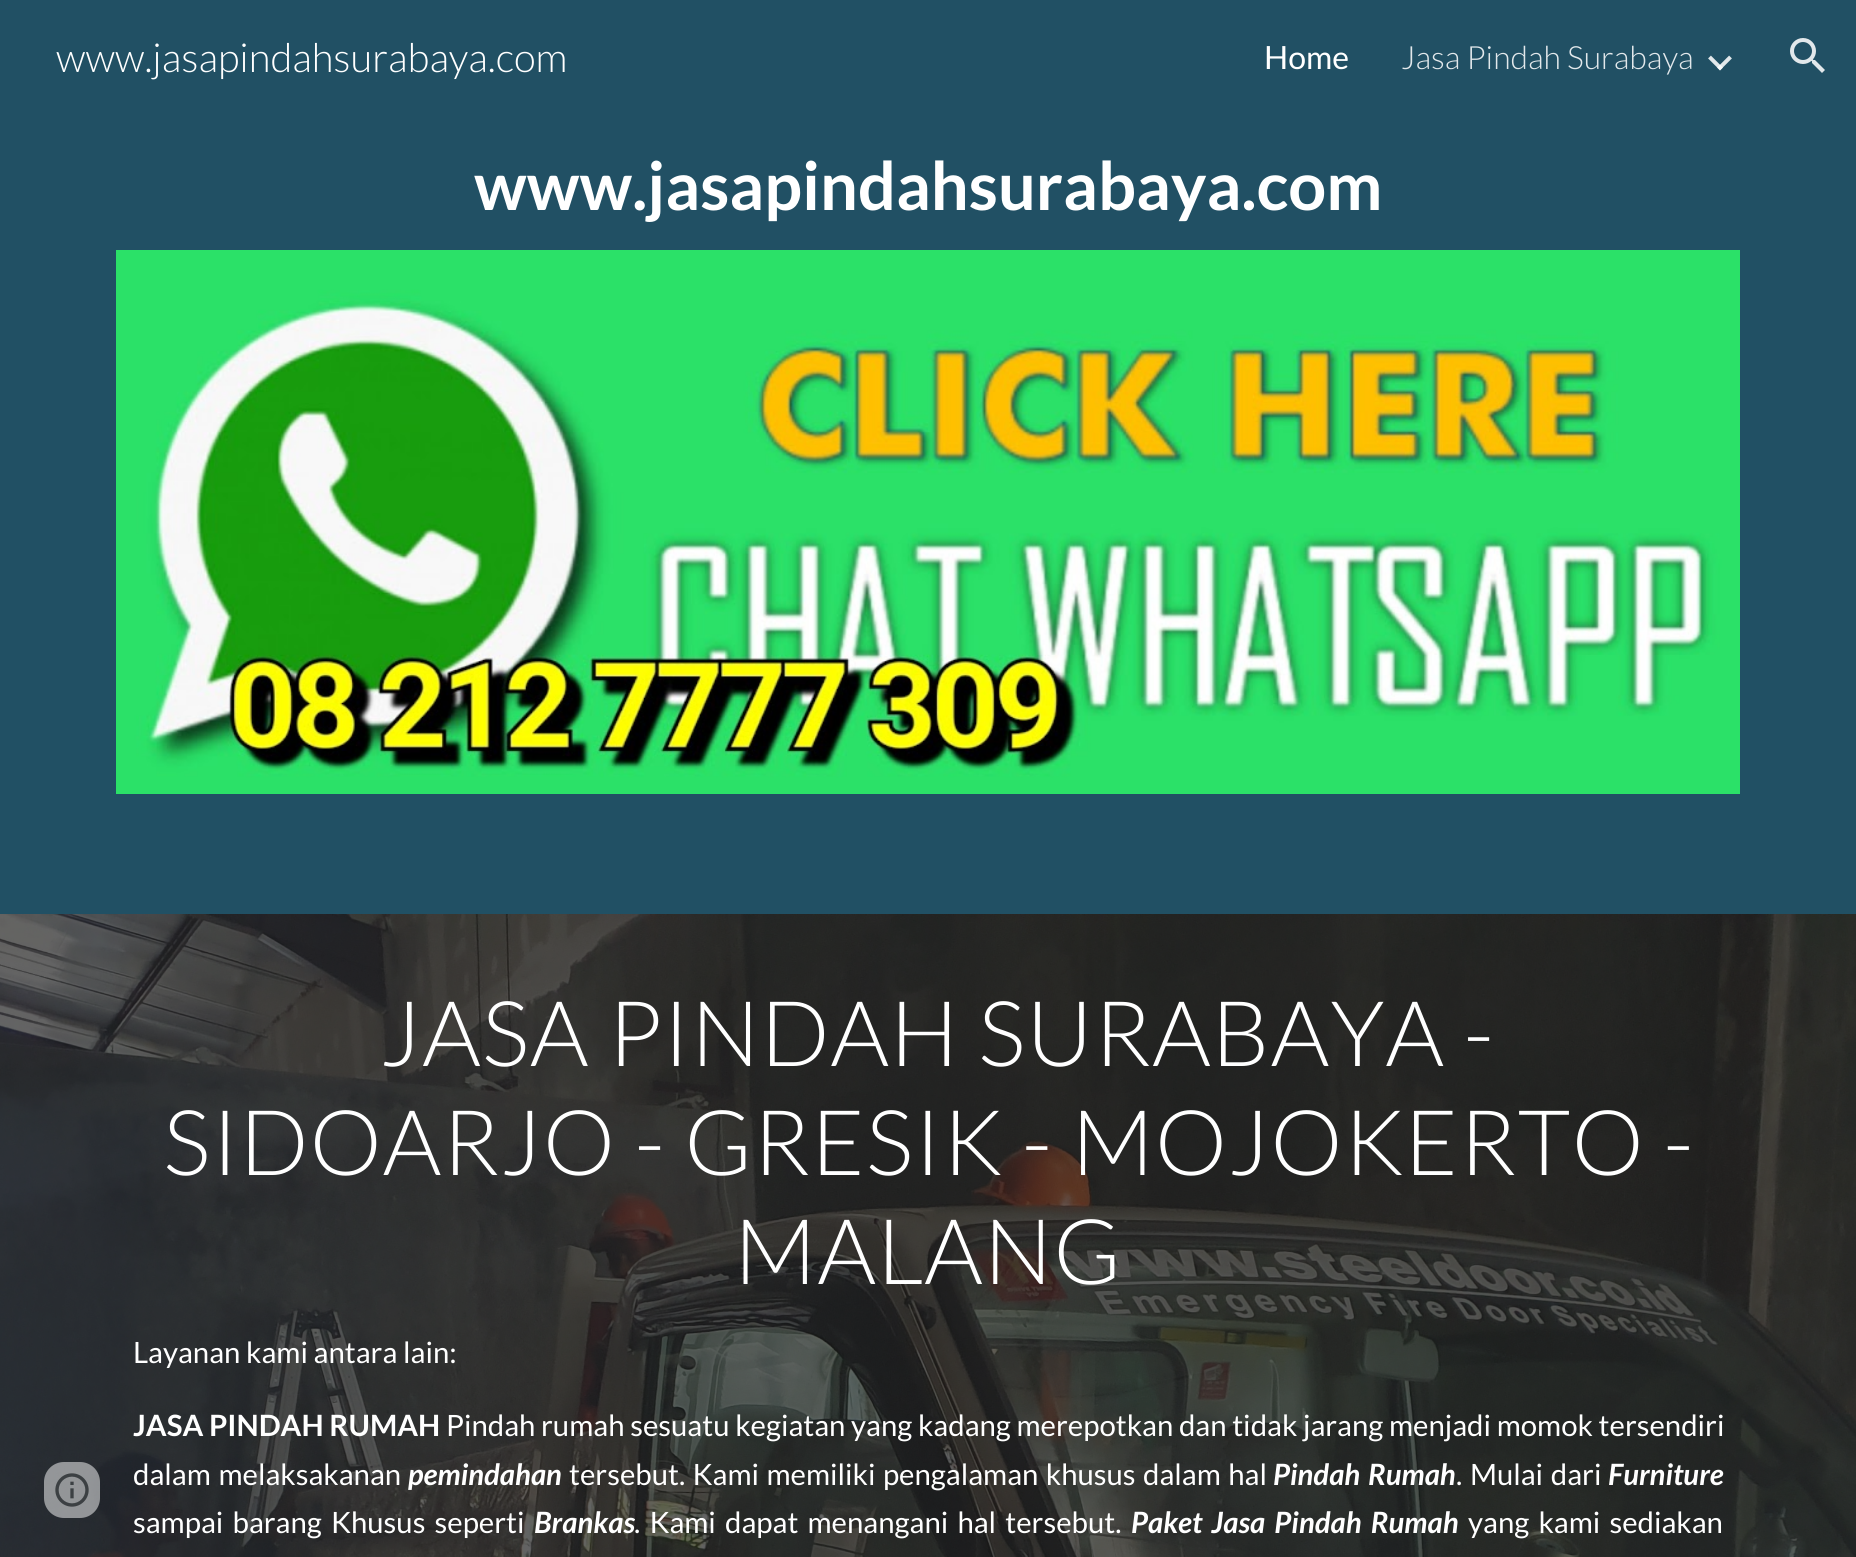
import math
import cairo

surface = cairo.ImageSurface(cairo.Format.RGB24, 1856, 1557)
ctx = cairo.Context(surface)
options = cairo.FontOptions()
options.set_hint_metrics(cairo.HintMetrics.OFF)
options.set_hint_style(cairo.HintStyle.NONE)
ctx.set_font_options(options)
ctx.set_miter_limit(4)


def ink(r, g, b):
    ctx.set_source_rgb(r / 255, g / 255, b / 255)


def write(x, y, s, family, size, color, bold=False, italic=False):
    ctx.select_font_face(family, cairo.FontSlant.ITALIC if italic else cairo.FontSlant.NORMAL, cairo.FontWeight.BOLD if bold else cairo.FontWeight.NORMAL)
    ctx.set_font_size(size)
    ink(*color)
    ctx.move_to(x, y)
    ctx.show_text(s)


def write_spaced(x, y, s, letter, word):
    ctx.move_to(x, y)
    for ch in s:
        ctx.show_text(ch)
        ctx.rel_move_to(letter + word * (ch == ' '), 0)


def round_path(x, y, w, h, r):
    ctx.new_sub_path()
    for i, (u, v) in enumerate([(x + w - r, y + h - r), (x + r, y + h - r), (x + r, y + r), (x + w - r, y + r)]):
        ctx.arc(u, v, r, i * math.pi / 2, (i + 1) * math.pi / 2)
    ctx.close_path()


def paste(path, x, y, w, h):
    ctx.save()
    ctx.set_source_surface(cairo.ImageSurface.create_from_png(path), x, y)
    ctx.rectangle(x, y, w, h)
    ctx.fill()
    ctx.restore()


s1 = dict(family="Lato Light", size=40, color=(255, 255, 255))
s2 = dict(family="Lato", size=32, color=(255, 255, 255))
s3 = dict(family="Lato Light", size=32, color=(226, 232, 235))
s4 = dict(family="Lato", size=66.7, color=(255, 255, 255), bold=True)
s5 = dict(family="Lato", size=29.35, color=(255, 255, 255))
s6 = dict(family="Lato", size=29.35, color=(255, 255, 255), bold=True)
s7 = dict(family="Lato", size=29.35, color=(255, 255, 255), bold=True, italic=True)

ink(33, 80, 100)
ctx.paint()
write(56, 72, "www.jasapindahsurabaya.com", **s1)
write(1264, 69, "Home", **s2)
write(1401, 69, "Jasa Pindah Surabaya", **s3)
ctx.new_path()
ctx.move_to(1709.5, 57)
ctx.line_to(1721.5, 69)
ctx.set_line_width(4)
ctx.stroke()
ctx.new_path()
ctx.move_to(1718.5, 69)
ctx.line_to(1730.5, 57)
ctx.set_source_rgba(1, 1, 1, 0.87)
ctx.stroke()
paste("pic1.png", 1790, 38, 35, 35)
paste("pic4.png", 0, 914, 1856, 643)
ctx.set_source_rgba(1, 1, 1, 0.5)
round_path(44, 1462, 56, 56, 20)
ctx.fill()
paste("pic2.png", 55, 1473, 34, 34)
write(474, 210, "www.jasapindahsurabaya.com", **s4)
paste("pic3.png", 116, 250, 1624, 544)
ctx.select_font_face("Lato Light")
ctx.set_font_size(90.7)
write_spaced(380, 1066, "JASA PINDAH SURABAYA -", 1, 0)
write_spaced(163, 1175, "SIDOARJO - GRESIK - MOJOKERTO -", 1, 0)
write_spaced(734, 1284, "MALANG", 1, 0)
write(133, 1363, "Layanan kami antara lain:", **s5)
write(133, 1436, "JASA PINDAH RUMAH", **s6)
write(446, 1436, "Pindah rumah sesuatu kegiatan yang kadang merepotkan dan tidak jarang menjadi momok tersendiri", **s5)
write_spaced(133, 1485, "dalam melaksakanan", 0, 2)
write(408, 1485, "pemindahan", **s7)
ctx.select_font_face("Lato")
write_spaced(569, 1485, "tersebut. Kami memiliki pengalaman khusus dalam hal", 0, 1.75)
ctx.select_font_face("Lato", cairo.FontSlant.ITALIC, cairo.FontWeight.BOLD)
write_spaced(1273, 1485, "Pindah Rumah", 0, 2)
ctx.select_font_face("Lato")
write_spaced(1456, 1485, ". Mulai dari", 0, 2)
write(1608, 1485, "Furniture", **s7)
ctx.select_font_face("Lato")
write_spaced(133, 1533, "sampai barang Khusus seperti", 0, 3.5)
write(534, 1533, "Brankas", **s7)
ctx.select_font_face("Lato")
write_spaced(634, 1533, ". Kami dapat menangani hal tersebut.", 0, 3.5)
ctx.select_font_face("Lato", cairo.FontSlant.ITALIC, cairo.FontWeight.BOLD)
write_spaced(1131, 1533, "Paket Jasa Pindah Rumah", 0, 3.5)
ctx.select_font_face("Lato")
write_spaced(1468, 1533, "yang kami sediakan", 0, 3.5)
surface.write_to_png("screenshot.png")
